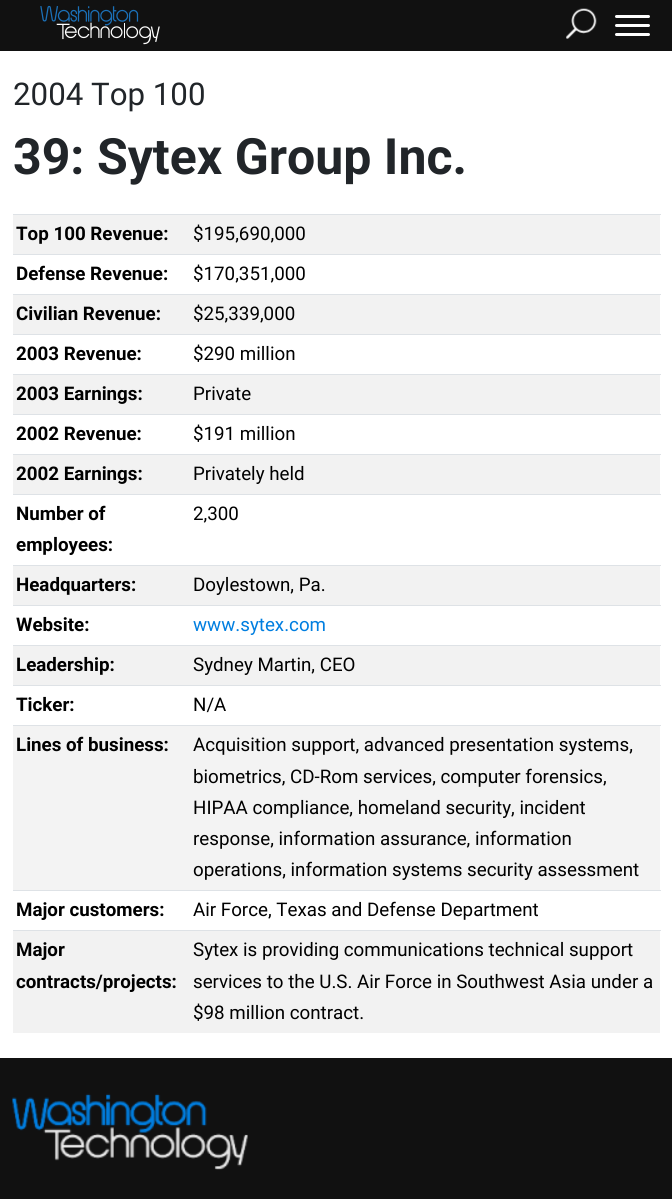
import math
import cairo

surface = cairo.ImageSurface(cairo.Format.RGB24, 672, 1199)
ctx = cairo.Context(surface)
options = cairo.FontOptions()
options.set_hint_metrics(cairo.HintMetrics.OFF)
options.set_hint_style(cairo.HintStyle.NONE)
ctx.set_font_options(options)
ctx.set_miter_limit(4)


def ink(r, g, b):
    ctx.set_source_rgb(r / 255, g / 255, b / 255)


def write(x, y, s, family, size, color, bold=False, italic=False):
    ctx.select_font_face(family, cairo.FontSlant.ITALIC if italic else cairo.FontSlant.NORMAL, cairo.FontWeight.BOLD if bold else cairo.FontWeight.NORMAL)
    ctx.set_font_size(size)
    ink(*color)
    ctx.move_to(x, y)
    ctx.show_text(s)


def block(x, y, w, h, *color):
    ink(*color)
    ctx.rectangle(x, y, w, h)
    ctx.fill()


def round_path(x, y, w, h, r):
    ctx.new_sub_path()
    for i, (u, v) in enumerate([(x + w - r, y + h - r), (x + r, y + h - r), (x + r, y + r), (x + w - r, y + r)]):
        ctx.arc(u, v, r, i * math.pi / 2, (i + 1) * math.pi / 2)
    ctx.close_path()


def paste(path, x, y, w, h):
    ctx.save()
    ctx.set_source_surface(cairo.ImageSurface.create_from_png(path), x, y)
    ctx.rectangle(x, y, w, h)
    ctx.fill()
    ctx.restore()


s1 = dict(family="Roboto", size=31.25, color=(33, 37, 41))
s2 = dict(family="Roboto", size=50, color=(33, 37, 41), bold=True)
s3 = dict(family="Roboto", size=18.75, color=(0, 0, 0), bold=True)
s4 = dict(family="Roboto", size=18.75, color=(0, 0, 0))
s5 = dict(family="Roboto", size=18.75, color=(0, 126, 224))

ink(255, 255, 255)
ctx.paint()
block(0, 0, 672, 51, 17, 17, 17)
paste("pic1.png", 40, 5, 120, 40)
paste("pic2.png", 566, 8, 31, 31)
ink(254, 254, 254)
round_path(615, 24, 35, 3, 1.5)
ctx.fill()
round_path(615, 15, 35, 3, 1.5)
ctx.fill()
round_path(615, 33, 35, 3, 1.5)
ctx.fill()
write(13, 105, "2004 Top 100", **s1)
write(13, 174, "39: Sytex Group Inc.", **s2)
block(13, 215, 647, 39, 242, 242, 242)
write(16, 240, "Top 100 Revenue:", **s3)
block(13, 214, 648, 1, 222, 226, 230)
write(193, 240, "$195,690,000", **s4)
write(16, 280, "Defense Revenue:", **s3)
block(13, 254, 648, 1, 222, 226, 230)
write(193, 280, "$170,351,000", **s4)
block(13, 295, 647, 39, 242, 242, 242)
write(16, 320, "Civilian Revenue:", **s3)
block(13, 294, 648, 1, 222, 226, 230)
write(193, 320, "$25,339,000", **s4)
write(16, 360, "2003 Revenue:", **s3)
block(13, 334, 648, 1, 222, 226, 230)
write(193, 360, "$290 million", **s4)
block(13, 375, 647, 39, 242, 242, 242)
write(16, 400, "2003 Earnings:", **s3)
block(13, 374, 648, 1, 222, 226, 230)
write(193, 400, "Private", **s4)
write(16, 440, "2002 Revenue:", **s3)
block(13, 414, 648, 1, 222, 226, 230)
write(193, 440, "$191 million", **s4)
block(13, 455, 647, 39, 242, 242, 242)
write(16, 480, "2002 Earnings:", **s3)
block(13, 454, 648, 1, 222, 226, 230)
write(193, 480, "Privately held", **s4)
write(16, 520, "Number of", **s3)
write(16, 551, "employees:", **s3)
block(13, 494, 648, 1, 222, 226, 230)
write(193, 520, "2,300", **s4)
block(13, 566, 647, 39, 242, 242, 242)
write(16, 591, "Headquarters:", **s3)
block(13, 565, 648, 1, 222, 226, 230)
write(193, 591, "Doylestown, Pa.", **s4)
write(16, 631, "Website:", **s3)
block(13, 605, 648, 1, 222, 226, 230)
write(193, 631, "www.sytex.com", **s5)
block(13, 646, 647, 39, 242, 242, 242)
write(16, 671, "Leadership:", **s3)
block(13, 645, 648, 1, 222, 226, 230)
write(193, 671, "Sydney Martin, CEO", **s4)
write(16, 711, "Ticker:", **s3)
block(13, 685, 648, 1, 222, 226, 230)
write(193, 711, "N/A", **s4)
block(13, 726, 647, 164, 243, 243, 243)
write(16, 751, "Lines of business:", **s3)
block(13, 725, 648, 1, 222, 226, 230)
write(193, 751, "Acquisition support, advanced presentation systems,", **s4)
write(193, 783, "biometrics, CD-Rom services, computer forensics,", **s4)
write(193, 814, "HIPAA compliance, homeland security, incident", **s4)
write(193, 845, "response, information assurance, information", **s4)
write(193, 876, "operations, information systems security assessment", **s4)
write(16, 916, "Major customers:", **s3)
block(13, 890, 648, 1, 222, 226, 230)
write(193, 916, "Air Force, Texas and Defense Department", **s4)
block(13, 931, 647, 102, 242, 242, 242)
write(16, 956, "Major", **s3)
write(16, 988, "contracts/projects:", **s3)
block(13, 930, 648, 1, 222, 226, 230)
write(193, 956, "Sytex is providing communications technical support", **s4)
write(193, 988, "services to the U.S. Air Force in Southwest Asia under a", **s4)
write(193, 1019, "$98 million contract.", **s4)
block(0, 1058, 672, 141, 17, 17, 17)
paste("pic3.png", 12, 1093, 236, 77)
surface.write_to_png("screenshot.png")
